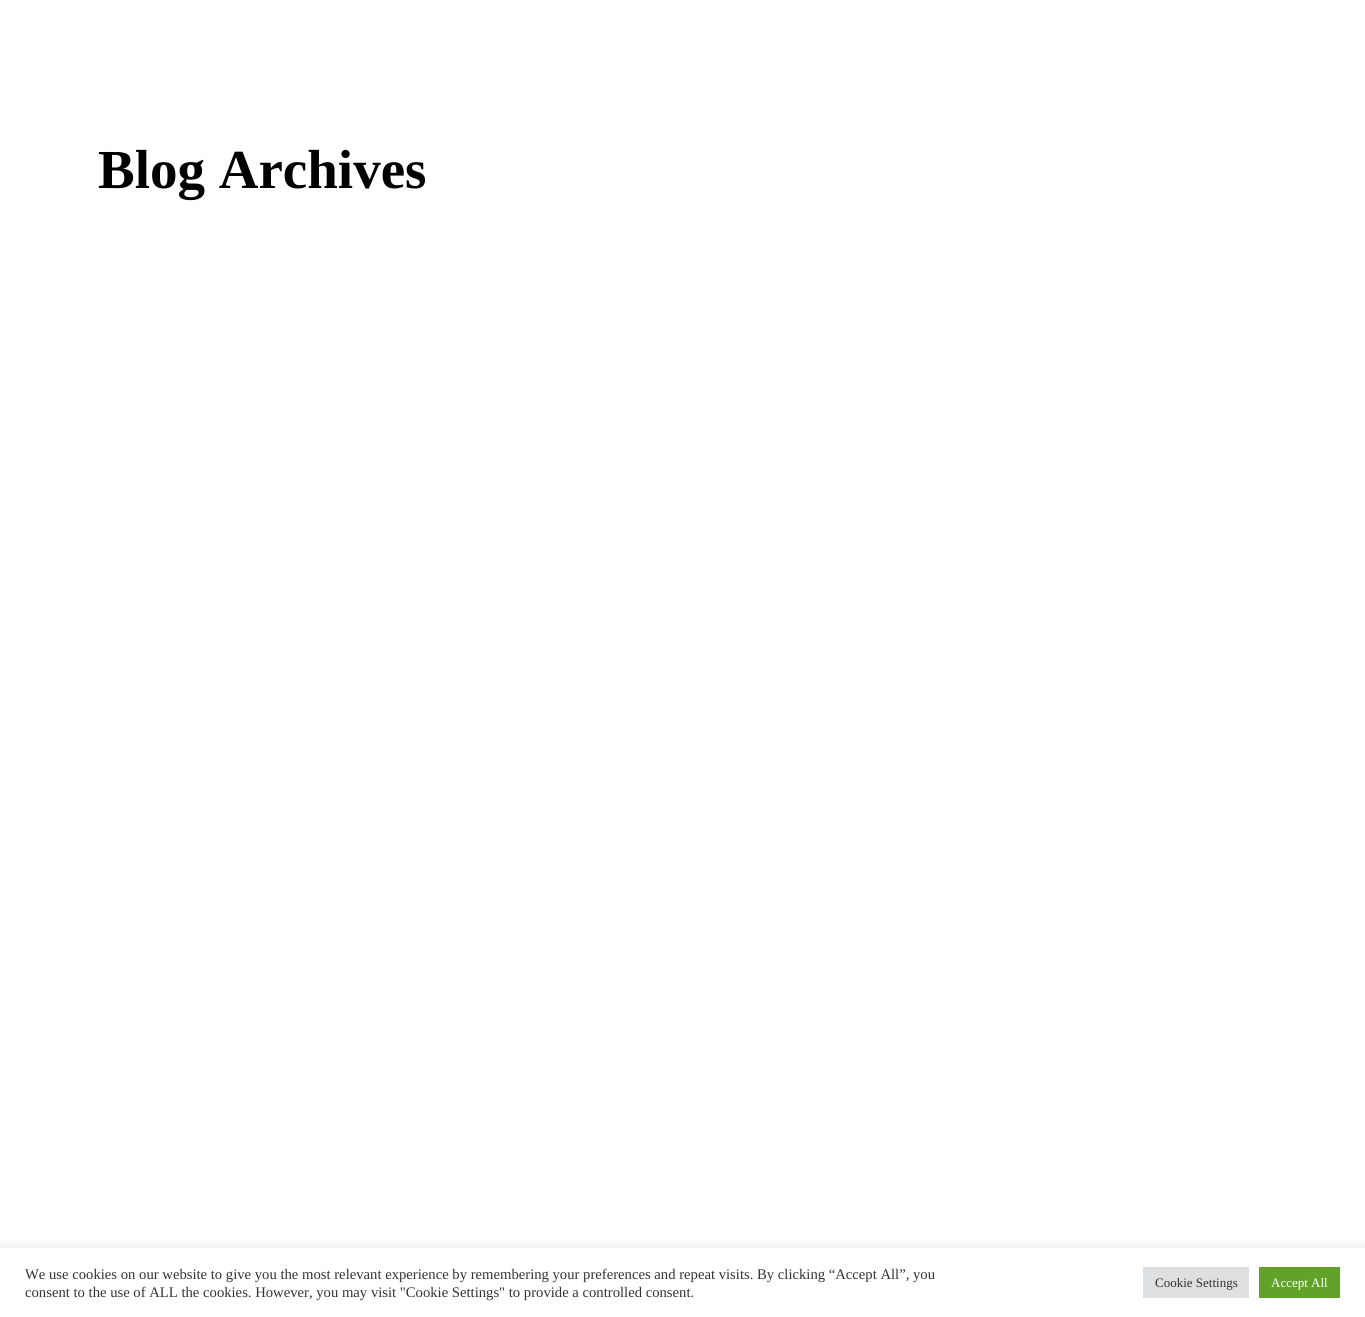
import math
import cairo

surface = cairo.ImageSurface(cairo.Format.RGB24, 1365, 1317)
ctx = cairo.Context(surface)
options = cairo.FontOptions()
options.set_hint_metrics(cairo.HintMetrics.OFF)
options.set_hint_style(cairo.HintStyle.NONE)
ctx.set_font_options(options)
ctx.set_miter_limit(4)


def ink(r, g, b):
    ctx.set_source_rgb(r / 255, g / 255, b / 255)


def write(x, y, s, family, size, color, bold=False, italic=False):
    ctx.select_font_face(family, cairo.FontSlant.ITALIC if italic else cairo.FontSlant.NORMAL, cairo.FontWeight.BOLD if bold else cairo.FontWeight.NORMAL)
    ctx.set_font_size(size)
    ink(*color)
    ctx.move_to(x, y)
    ctx.show_text(s)


def block(x, y, w, h, *color):
    ink(*color)
    ctx.rectangle(x, y, w, h)
    ctx.fill()


def round_path(x, y, w, h, r):
    ctx.new_sub_path()
    for i, (u, v) in enumerate([(x + w - r, y + h - r), (x + r, y + h - r), (x + r, y + r), (x + w - r, y + r)]):
        ctx.arc(u, v, r, i * math.pi / 2, (i + 1) * math.pi / 2)
    ctx.close_path()


def blur_box(x, y, w, h, r, blur, alpha):
    ctx.push_group_with_content(cairo.Content.ALPHA)
    ctx.set_operator(cairo.Operator.SOURCE)
    for i in range(15, -16, -2):
        e = blur * i / 6
        if min(w, h) + 2 * e > 0:
            ctx.set_source_rgba(0, 0, 0, alpha * math.erfc((i - 1) / 8.5) / 2)
            round_path(x - e, y - e, w + 2 * e, h + 2 * e, max(0, min(r + e + blur * .6, min(w, h) / 2 + e)))
            ctx.fill()
    ctx.mask(ctx.pop_group())


s1 = dict(family="Liberation Serif", size=55, color=(0, 0, 0), bold=True)
s2 = dict(family="Liberation Serif", size=14.67, color=(51, 51, 51))
s3 = dict(family="Liberation Serif", size=13, color=(51, 51, 51))
s4 = dict(family="Liberation Serif", size=13, color=(255, 255, 255))

ink(255, 255, 255)
ctx.paint()
write(98, 188, "Blog Archives", **s1)
ctx.save()
ctx.rectangle(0, 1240, 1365, 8)
ctx.clip()
ink(172, 171, 171)
blur_box(0, 1247, 1365, 69, 0, 5, 0.3)
ctx.restore()
write(25, 1279, "We use cookies on our website to give you the most relevant experience by remembering your preferences and repeat visits. By clicking “Accept All”, you", **s2)
write(25, 1297, "consent to the use of ALL the cookies. However, you may visit \"Cookie Settings\" to provide a controlled consent.", **s2)
block(1143, 1267, 106, 31, 222, 223, 224)
write(1155, 1287, "Cookie Settings", **s3)
block(1259, 1267, 81, 31, 97, 162, 41)
write(1271, 1287, "Accept All", **s4)
surface.write_to_png("screenshot.png")
